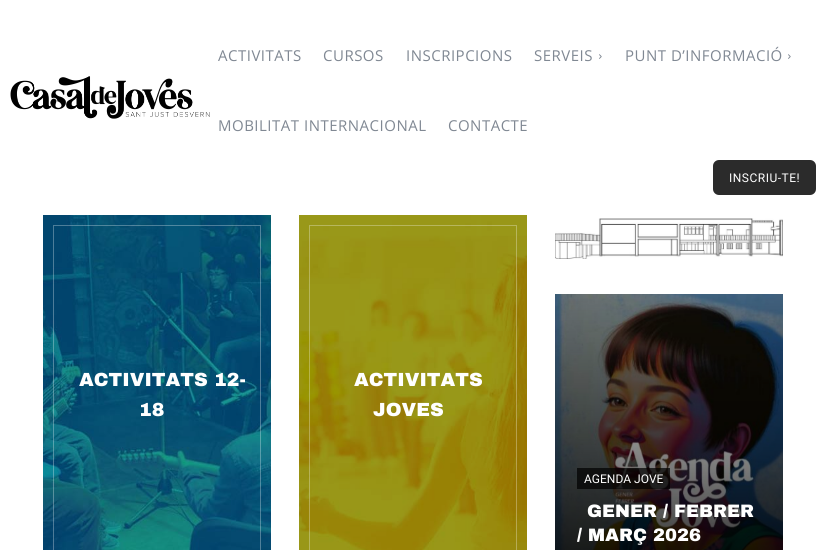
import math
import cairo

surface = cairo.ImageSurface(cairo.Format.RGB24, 826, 550)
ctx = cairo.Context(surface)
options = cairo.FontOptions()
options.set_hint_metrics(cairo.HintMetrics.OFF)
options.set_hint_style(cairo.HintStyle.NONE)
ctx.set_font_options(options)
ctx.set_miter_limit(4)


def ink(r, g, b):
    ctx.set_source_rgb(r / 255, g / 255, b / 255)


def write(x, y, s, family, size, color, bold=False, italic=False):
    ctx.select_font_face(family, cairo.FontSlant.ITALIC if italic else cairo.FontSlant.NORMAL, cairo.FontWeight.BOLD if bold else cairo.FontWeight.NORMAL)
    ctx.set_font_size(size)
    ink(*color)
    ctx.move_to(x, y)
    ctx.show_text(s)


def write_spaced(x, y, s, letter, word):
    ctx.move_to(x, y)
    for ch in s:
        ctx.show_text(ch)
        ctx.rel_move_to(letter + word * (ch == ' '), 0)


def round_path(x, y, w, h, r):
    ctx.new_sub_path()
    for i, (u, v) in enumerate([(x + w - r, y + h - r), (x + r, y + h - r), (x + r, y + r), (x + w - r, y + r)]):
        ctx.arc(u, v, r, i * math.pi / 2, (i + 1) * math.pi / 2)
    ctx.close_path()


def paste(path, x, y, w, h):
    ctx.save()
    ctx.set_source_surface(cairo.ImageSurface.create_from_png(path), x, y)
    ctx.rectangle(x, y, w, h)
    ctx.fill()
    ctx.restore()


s1 = dict(family="Archivo Black Black", size=19, color=(255, 255, 255))
s2 = dict(family="Roboto", size=12, color=(255, 255, 255))
s3 = dict(family="Archivo Black Black", size=18, color=(255, 255, 255))

ink(255, 255, 255)
ctx.paint()
paste("pic1.png", 10, 76, 200, 43)
ctx.select_font_face("Open Sans")
ctx.set_font_size(15)
ink(128, 136, 147)
write_spaced(218, 61, "ACTIVITATS", 0.5, 0)
write_spaced(323, 61, "CURSOS", 0.5, 0)
write_spaced(406, 61, "INSCRIPCIONS", 0.5, 0)
write_spaced(534, 61, "SERVEIS", 0.5, 0)
paste("pic2.png", 599, 54, 3, 5)
write_spaced(625, 61, "PUNT D’INFORMACIÓ", 0.5, 0)
paste("pic2.png", 788, 54, 3, 5)
write_spaced(218, 131, "MOBILITAT INTERNACIONAL", 0.5, 0)
write_spaced(448, 131, "CONTACTE", 0.5, 0)
ink(43, 43, 43)
round_path(713, 160, 103, 35, 6)
ctx.fill()
ctx.select_font_face("Roboto")
ctx.set_font_size(12)
ink(255, 255, 255)
write_spaced(729, 182, "INSCRIU-TE!", 0.5, 0)
paste("pic3.png", 43, 215, 228, 335)
ctx.rectangle(53.5, 225.5, 207, 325)
ctx.set_source_rgba(1, 1, 1, 0.3)
ctx.set_line_width(1)
ctx.stroke()
write(79, 386, "ACTIVITATS 12-", **s1)
write(139, 416, "18", **s1)
paste("pic4.png", 299, 215, 228, 335)
ctx.rectangle(309.5, 225.5, 207, 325)
ctx.set_source_rgba(1, 1, 1, 0.3)
ctx.stroke()
write(354, 386, "ACTIVITATS", **s1)
write(373, 416, "JOVES", **s1)
paste("pic5.png", 555, 218, 228, 41)
paste("pic6.png", 555, 294, 228, 256)
ctx.set_source_rgba(0, 0, 0, 0.7)
ctx.rectangle(577, 468, 93, 21)
ctx.fill()
write(584, 483, "AGENDA JOVE", **s2)
write(587, 517, "GENER / FEBRER", **s3)
write(577, 541, "/ MARÇ 2026", **s3)
surface.write_to_png("screenshot.png")
